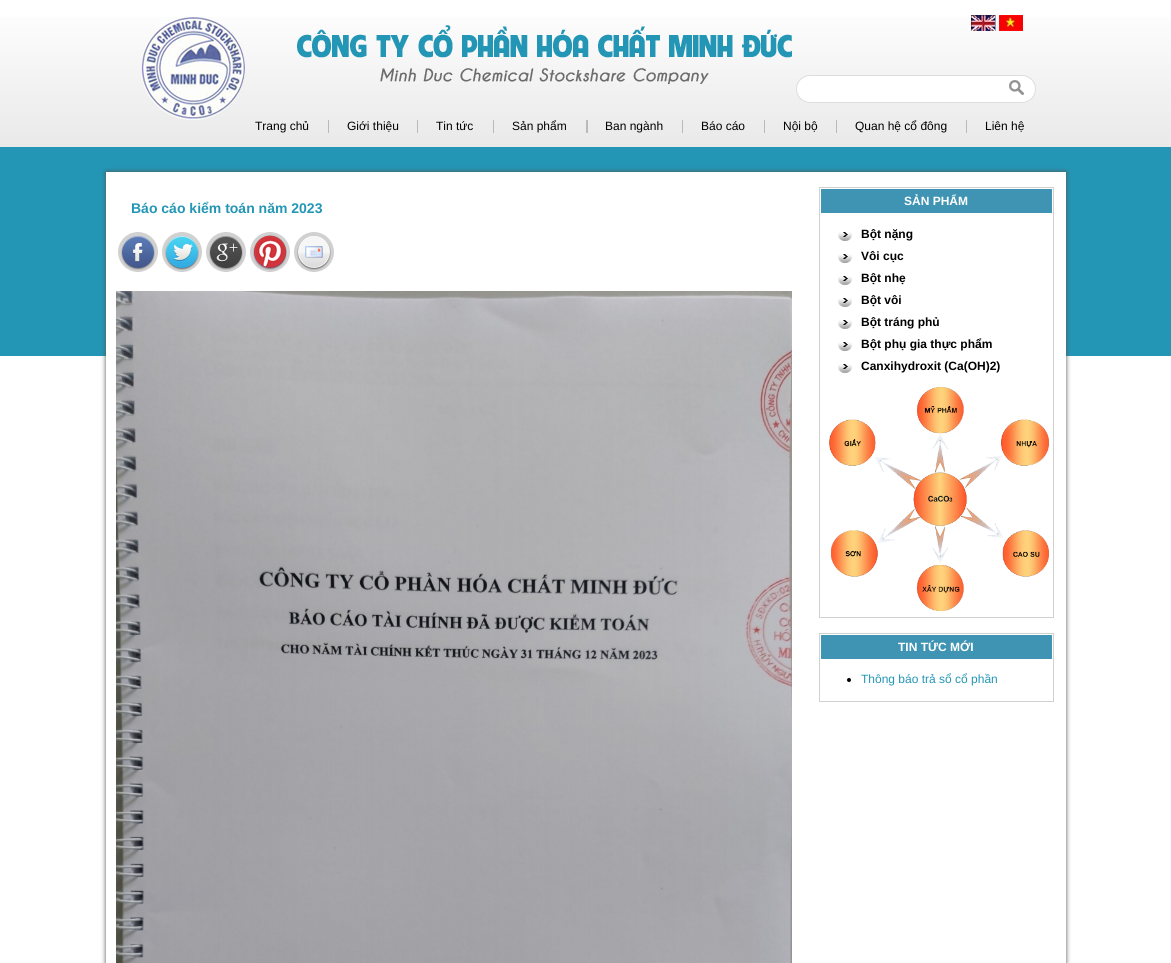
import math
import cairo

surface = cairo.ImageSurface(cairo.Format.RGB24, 1171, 963)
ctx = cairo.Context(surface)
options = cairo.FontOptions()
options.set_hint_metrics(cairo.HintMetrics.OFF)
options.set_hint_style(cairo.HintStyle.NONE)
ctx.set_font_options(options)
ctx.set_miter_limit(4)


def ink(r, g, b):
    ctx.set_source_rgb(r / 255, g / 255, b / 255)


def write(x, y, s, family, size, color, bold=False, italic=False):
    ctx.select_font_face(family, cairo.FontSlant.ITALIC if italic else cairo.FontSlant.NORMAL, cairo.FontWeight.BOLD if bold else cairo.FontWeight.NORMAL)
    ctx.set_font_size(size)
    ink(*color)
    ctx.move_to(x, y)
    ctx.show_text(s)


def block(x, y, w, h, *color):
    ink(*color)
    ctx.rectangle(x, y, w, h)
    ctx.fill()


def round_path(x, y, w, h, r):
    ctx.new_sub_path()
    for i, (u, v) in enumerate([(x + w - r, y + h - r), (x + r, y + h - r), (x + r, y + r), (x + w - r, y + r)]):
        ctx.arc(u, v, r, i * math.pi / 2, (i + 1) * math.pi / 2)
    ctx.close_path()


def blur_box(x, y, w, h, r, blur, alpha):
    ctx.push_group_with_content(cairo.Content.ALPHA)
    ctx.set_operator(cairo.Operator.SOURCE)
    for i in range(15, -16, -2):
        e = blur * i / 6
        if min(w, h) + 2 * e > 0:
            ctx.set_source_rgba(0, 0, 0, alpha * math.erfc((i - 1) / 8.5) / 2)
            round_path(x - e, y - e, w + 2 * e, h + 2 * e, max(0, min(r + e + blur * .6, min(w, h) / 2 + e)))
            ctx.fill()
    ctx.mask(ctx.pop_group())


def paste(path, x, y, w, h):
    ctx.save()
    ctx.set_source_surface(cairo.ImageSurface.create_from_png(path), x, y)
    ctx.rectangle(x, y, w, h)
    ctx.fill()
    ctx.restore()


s1 = dict(family="Liberation Sans", size=12, color=(0, 0, 0))
s2 = dict(family="Liberation Sans", size=14, color=(35, 150, 181), bold=True)
s3 = dict(family="Liberation Sans", size=12, color=(255, 255, 255), bold=True)
s4 = dict(family="Liberation Sans", size=12, color=(0, 0, 0), bold=True)
s5 = dict(family="Liberation Sans", size=12, color=(35, 150, 181))

ink(255, 255, 255)
ctx.paint()
gradient = cairo.LinearGradient(586, 0, 586, 147)
gradient.add_color_stop_rgba(0, 1, 1, 1, 1)
gradient.add_color_stop_rgba(1, 0.914, 0.914, 0.914, 1)
ctx.set_source(gradient)
ctx.rectangle(0, 17, 1171, 130)
ctx.fill()
paste("pic1.png", 141, 17, 104, 103)
paste("pic2.png", 297, 25, 495, 60)
paste("pic3.png", 971, 15, 25, 16)
paste("pic4.png", 999, 15, 24, 16)
ink(255, 255, 255)
round_path(796.5, 75.5, 239, 27, 13.5)
ctx.fill_preserve()
ink(221, 221, 221)
ctx.set_line_width(1)
ctx.stroke()
paste("pic5.png", 1009, 80, 15, 15)
write(255, 130, "Trang chủ", **s1)
block(328, 120, 1, 13, 186, 186, 186)
write(347, 130, "Giới thiệu", **s1)
block(417, 120, 1, 13, 186, 186, 186)
write(436, 130, "Tin tức", **s1)
block(493, 120, 1, 13, 186, 186, 186)
write(512, 130, "Sản phẩm", **s1)
block(586, 120, 2, 13, 186, 186, 186)
write(605, 130, "Ban ngành", **s1)
block(682, 120, 1, 13, 186, 186, 186)
write(701, 130, "Báo cáo", **s1)
block(764, 120, 1, 13, 186, 186, 186)
write(783, 130, "Nội bộ", **s1)
block(836, 120, 1, 13, 186, 186, 186)
write(855, 130, "Quan hệ cổ đông", **s1)
block(966, 120, 1, 13, 186, 186, 186)
write(985, 130, "Liên hệ", **s1)
block(0, 147, 1171, 209, 35, 150, 181)
ink(81, 81, 81)
blur_box(106, 172, 960, 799, 0, 2.5, 1)
block(106, 172, 960, 791, 255, 255, 255)
write(131, 213, "Báo cáo kiểm toán năm 2023", **s2)
paste("pic6.png", 118, 232, 40, 40)
paste("pic7.png", 162, 232, 40, 40)
paste("pic8.png", 206, 232, 40, 40)
paste("pic9.png", 250, 232, 40, 40)
paste("pic10.png", 294, 232, 40, 40)
paste("pic11.png", 116, 291, 676, 672)
ctx.rectangle(819.5, 187.5, 234, 430)
ink(209, 209, 209)
ctx.stroke()
block(821, 189, 231, 24, 62, 148, 178)
write(904, 205, "SẢN PHẨM", **s3)
paste("pic12.png", 838, 232, 14, 9)
write(861, 238, "Bột nặng", **s4)
paste("pic12.png", 838, 254, 14, 9)
write(861, 260, "Vôi cục", **s4)
paste("pic12.png", 838, 276, 14, 9)
write(861, 282, "Bột nhẹ", **s4)
paste("pic12.png", 838, 298, 14, 9)
write(861, 304, "Bột vôi", **s4)
paste("pic12.png", 838, 320, 14, 9)
write(861, 326, "Bột tráng phủ", **s4)
paste("pic12.png", 838, 342, 14, 9)
write(861, 348, "Bột phụ gia thực phẩm", **s4)
paste("pic12.png", 838, 364, 14, 9)
write(861, 370, "Canxihydroxit (Ca(OH)2)", **s4)
paste("pic13.png", 829, 387, 220, 224)
ctx.rectangle(819.5, 633.5, 234, 68)
ink(209, 209, 209)
ctx.stroke()
block(821, 635, 231, 24, 62, 148, 178)
write(898, 651, "TIN TỨC MỚI", **s3)
ink(0, 0, 0)
ctx.new_path()
ctx.arc(849, 680, 2, 0, 2 * math.pi)
ctx.fill()
write(861, 683, "Thông báo trả sổ cổ phần", **s5)
surface.write_to_png("screenshot.png")
